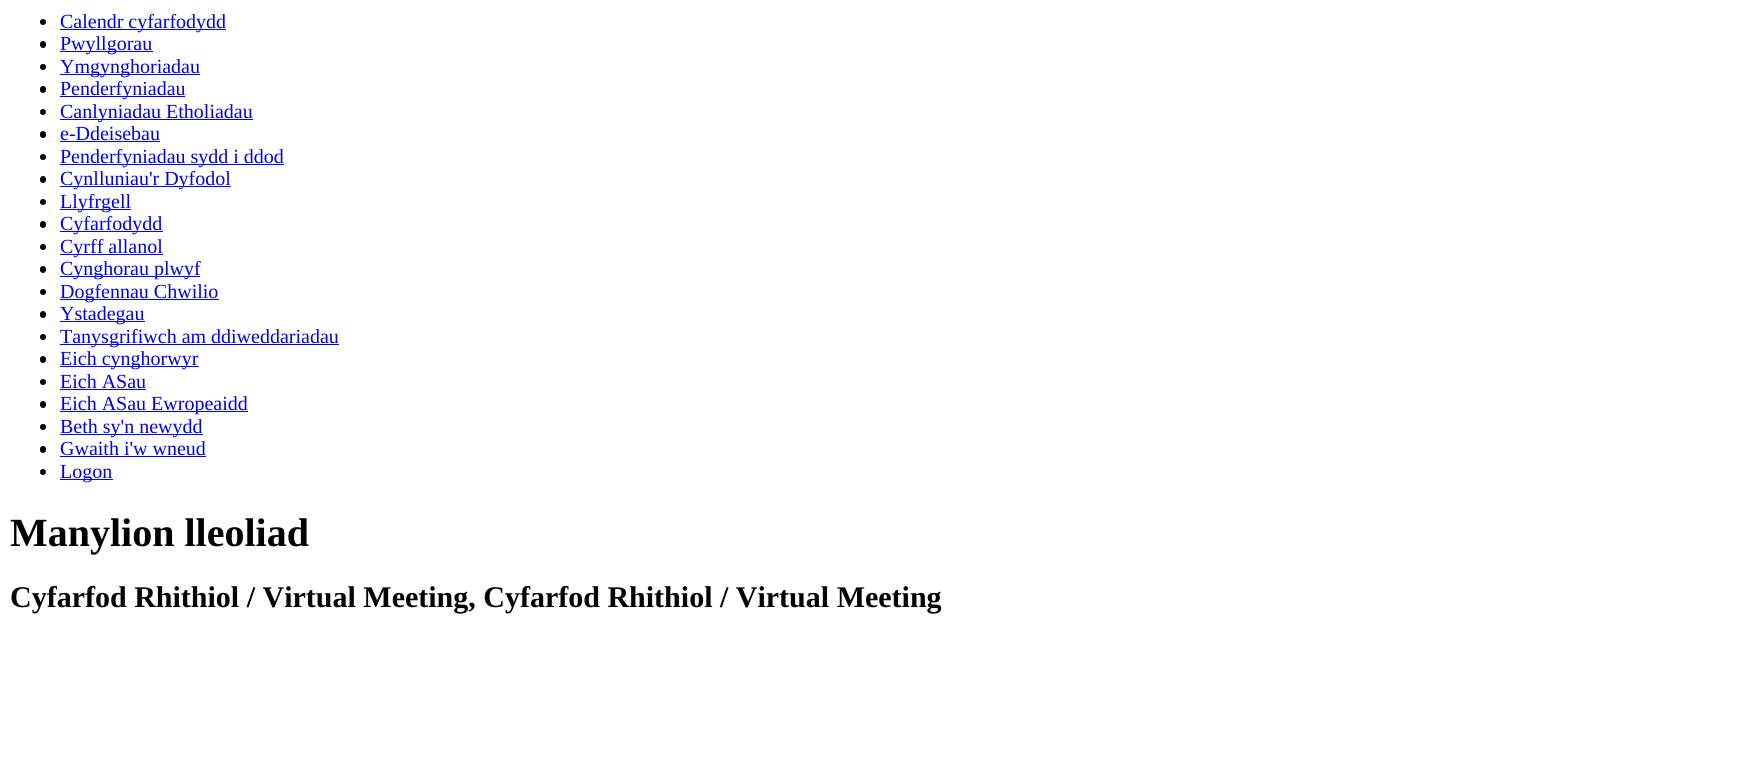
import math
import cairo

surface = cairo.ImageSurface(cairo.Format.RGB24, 1742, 766)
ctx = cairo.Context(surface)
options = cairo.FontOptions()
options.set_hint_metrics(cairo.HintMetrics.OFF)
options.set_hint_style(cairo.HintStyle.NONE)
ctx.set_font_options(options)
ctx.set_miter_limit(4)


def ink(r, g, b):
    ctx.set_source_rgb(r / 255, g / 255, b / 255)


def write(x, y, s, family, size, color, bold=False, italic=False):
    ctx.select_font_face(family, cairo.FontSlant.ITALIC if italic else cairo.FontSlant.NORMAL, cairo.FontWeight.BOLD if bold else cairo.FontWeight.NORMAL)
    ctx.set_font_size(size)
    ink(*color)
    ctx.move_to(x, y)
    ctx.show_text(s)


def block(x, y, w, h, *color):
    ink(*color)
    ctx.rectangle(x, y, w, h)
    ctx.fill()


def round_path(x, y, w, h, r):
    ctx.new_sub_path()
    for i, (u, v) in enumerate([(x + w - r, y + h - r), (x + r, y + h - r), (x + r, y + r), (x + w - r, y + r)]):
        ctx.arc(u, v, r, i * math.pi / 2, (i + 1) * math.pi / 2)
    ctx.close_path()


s1 = dict(family="Liberation Serif", size=20, color=(0, 0, 238))
s2 = dict(family="Liberation Serif", size=40, color=(0, 0, 0), bold=True)
s3 = dict(family="Liberation Serif", size=30, color=(0, 0, 0), bold=True)

ink(255, 255, 255)
ctx.paint()
ink(0, 0, 0)
ctx.arc(43, 22, 3, 0, 2 * math.pi)
ctx.fill()
block(60, 29, 166, 1, 0, 0, 238)
write(60, 28, "Calendr cyfarfodydd", **s1)
ink(0, 0, 0)
round_path(40, 41, 6, 7, 3)
ctx.fill()
block(60, 51, 93, 1, 0, 0, 238)
write(60, 50, "Pwyllgorau", **s1)
ink(0, 0, 0)
ctx.new_path()
ctx.arc(43, 67, 3, 0, 2 * math.pi)
ctx.fill()
block(60, 74, 140, 1, 0, 0, 238)
write(60, 73, "Ymgynghoriadau", **s1)
ink(0, 0, 0)
round_path(40, 86, 6, 7, 3)
ctx.fill()
block(60, 96, 125, 1, 0, 0, 238)
write(60, 95, "Penderfyniadau", **s1)
ink(0, 0, 0)
ctx.new_path()
ctx.arc(43, 112, 3, 0, 2 * math.pi)
ctx.fill()
block(60, 119, 193, 1, 0, 0, 238)
write(60, 118, "Canlyniadau Etholiadau", **s1)
ink(0, 0, 0)
round_path(40, 131, 6, 7, 3)
ctx.fill()
write(60, 140, "e-Ddeisebau", **s1)
block(60, 141, 100, 1, 0, 0, 238)
ink(0, 0, 0)
ctx.new_path()
ctx.arc(43, 157, 3, 0, 2 * math.pi)
ctx.fill()
block(60, 164, 224, 1, 0, 0, 238)
write(60, 163, "Penderfyniadau sydd i ddod", **s1)
ink(0, 0, 0)
round_path(40, 176, 6, 7, 3)
ctx.fill()
block(60, 186, 171, 1, 0, 0, 238)
write(60, 185, "Cynlluniau'r Dyfodol", **s1)
ink(0, 0, 0)
ctx.new_path()
ctx.arc(43, 202, 3, 0, 2 * math.pi)
ctx.fill()
block(60, 209, 71, 1, 0, 0, 238)
write(60, 208, "Llyfrgell", **s1)
ink(0, 0, 0)
round_path(40, 221, 6, 7, 3)
ctx.fill()
block(60, 231, 103, 1, 0, 0, 238)
write(60, 230, "Cyfarfodydd", **s1)
ink(0, 0, 0)
ctx.new_path()
ctx.arc(43, 247, 3, 0, 2 * math.pi)
ctx.fill()
block(60, 254, 103, 1, 0, 0, 238)
write(60, 253, "Cyrff allanol", **s1)
ink(0, 0, 0)
round_path(40, 266, 6, 7, 3)
ctx.fill()
block(60, 276, 140, 1, 0, 0, 238)
write(60, 275, "Cynghorau plwyf", **s1)
ink(0, 0, 0)
ctx.new_path()
ctx.arc(43, 292, 3, 0, 2 * math.pi)
ctx.fill()
block(60, 299, 159, 1, 0, 0, 238)
write(60, 298, "Dogfennau Chwilio", **s1)
ink(0, 0, 0)
round_path(40, 311, 6, 7, 3)
ctx.fill()
block(60, 321, 85, 1, 0, 0, 238)
write(60, 320, "Ystadegau", **s1)
ink(0, 0, 0)
ctx.new_path()
ctx.arc(43, 337, 3, 0, 2 * math.pi)
ctx.fill()
block(60, 344, 279, 1, 0, 0, 238)
write(60, 343, "Tanysgrifiwch am ddiweddariadau", **s1)
ink(0, 0, 0)
round_path(40, 356, 6, 7, 3)
ctx.fill()
block(60, 366, 139, 1, 0, 0, 238)
write(60, 365, "Eich cynghorwyr", **s1)
ink(0, 0, 0)
ctx.new_path()
ctx.arc(43, 382, 3, 0, 2 * math.pi)
ctx.fill()
write(60, 388, "Eich ASau", **s1)
block(60, 389, 86, 1, 0, 0, 238)
ink(0, 0, 0)
round_path(40, 401, 6, 7, 3)
ctx.fill()
block(60, 411, 188, 1, 0, 0, 238)
write(60, 410, "Eich ASau Ewropeaidd", **s1)
ink(0, 0, 0)
ctx.new_path()
ctx.arc(43, 427, 3, 0, 2 * math.pi)
ctx.fill()
block(60, 434, 143, 1, 0, 0, 238)
write(60, 433, "Beth sy'n newydd", **s1)
ink(0, 0, 0)
round_path(40, 446, 6, 7, 3)
ctx.fill()
write(60, 455, "Gwaith i'w wneud", **s1)
block(60, 456, 146, 1, 0, 0, 238)
ink(0, 0, 0)
ctx.new_path()
ctx.arc(43, 472, 3, 0, 2 * math.pi)
ctx.fill()
block(60, 479, 53, 1, 0, 0, 238)
write(60, 478, "Logon", **s1)
write(10, 546, "Manylion lleoliad", **s2)
write(10, 607, "Cyfarfod Rhithiol / Virtual Meeting, Cyfarfod Rhithiol / Virtual Meeting", **s3)
surface.write_to_png("screenshot.png")
